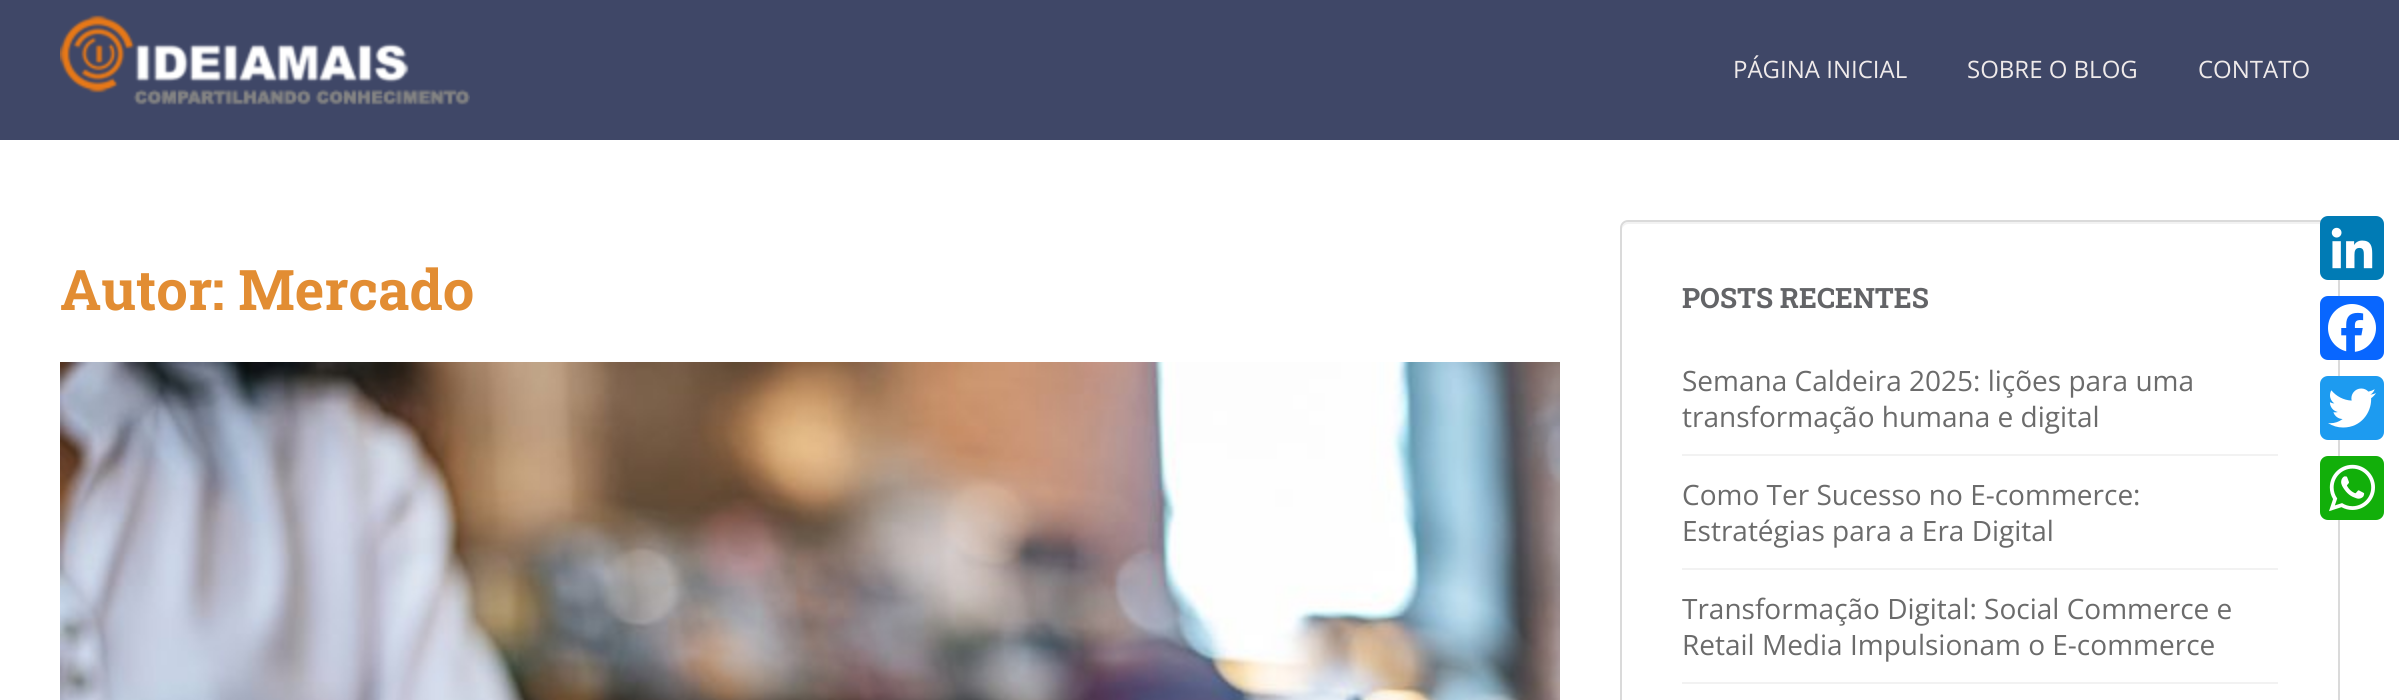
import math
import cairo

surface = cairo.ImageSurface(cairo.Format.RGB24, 2399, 700)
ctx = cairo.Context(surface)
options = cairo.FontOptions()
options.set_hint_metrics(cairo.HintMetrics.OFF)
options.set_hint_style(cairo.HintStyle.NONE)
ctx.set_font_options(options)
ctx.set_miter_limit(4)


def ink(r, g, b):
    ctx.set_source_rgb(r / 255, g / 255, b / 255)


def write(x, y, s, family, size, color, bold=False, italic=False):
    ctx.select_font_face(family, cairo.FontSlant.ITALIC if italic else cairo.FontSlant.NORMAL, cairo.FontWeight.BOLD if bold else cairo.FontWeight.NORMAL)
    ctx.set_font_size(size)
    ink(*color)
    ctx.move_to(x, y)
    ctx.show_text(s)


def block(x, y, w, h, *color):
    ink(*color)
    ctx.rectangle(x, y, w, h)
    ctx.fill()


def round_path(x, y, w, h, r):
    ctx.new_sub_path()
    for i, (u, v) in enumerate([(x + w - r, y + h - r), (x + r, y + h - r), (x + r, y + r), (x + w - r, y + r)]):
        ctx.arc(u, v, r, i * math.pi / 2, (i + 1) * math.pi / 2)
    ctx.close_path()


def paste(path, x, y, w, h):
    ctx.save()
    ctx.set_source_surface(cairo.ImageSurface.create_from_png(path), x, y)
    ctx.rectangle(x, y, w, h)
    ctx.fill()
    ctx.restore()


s1 = dict(family="Open Sans", size=24, color=(239, 234, 234))
s2 = dict(family="Roboto Slab", size=56, color=(226, 141, 51), bold=True)
s3 = dict(family="Roboto Slab", size=28, color=(99, 100, 103), bold=True)
s4 = dict(family="Open Sans", size=28, color=(107, 107, 107))

ink(255, 255, 255)
ctx.paint()
block(0, 0, 2399, 140, 63, 71, 103)
paste("pic1.png", 60, 15, 410, 90)
write(1733, 78, "PÁGINA INICIAL", **s1)
write(1967, 78, "SOBRE O BLOG", **s1)
write(2198, 78, "CONTATO", **s1)
write(60, 310, "Autor: Mercado", **s2)
paste("pic2.png", 60, 362, 1500, 338)
ink(242, 242, 242)
ctx.new_path()
ctx.move_to(1628, 224)
ctx.line_to(2332, 224)
ctx.curve_to(2335, 224, 2338, 227, 2338, 230)
ctx.line_to(2338, 228)
ctx.curve_to(2338, 225, 2335, 222, 2332, 222)
ctx.line_to(1628, 222)
ctx.curve_to(1625, 222, 1622, 225, 1622, 228)
ctx.line_to(1622, 230)
ctx.curve_to(1622, 227, 1625, 224, 1628, 224)
ctx.close_path()
ctx.fill()
round_path(1621, 221, 718, 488, 7)
ink(218, 218, 218)
ctx.stroke()
write(1682, 308, "POSTS RECENTES", **s3)
block(1682, 454, 596, 2, 242, 242, 242)
write(1682, 391, "Semana Caldeira 2025: lições para uma", **s4)
write(1682, 427, "transformação humana e digital", **s4)
block(1682, 568, 596, 2, 242, 242, 242)
write(1682, 505, "Como Ter Sucesso no E-commerce:", **s4)
write(1682, 541, "Estratégias para a Era Digital", **s4)
block(1682, 682, 596, 2, 242, 242, 242)
write(1682, 619, "Transformação Digital: Social Commerce e", **s4)
write(1682, 655, "Retail Media Impulsionam o E-commerce", **s4)
ink(0, 123, 181)
round_path(2320, 216, 64, 64, 8)
ctx.fill()
paste("pic3.png", 2331, 227, 42, 42)
ink(8, 102, 255)
round_path(2320, 296, 64, 64, 8)
ctx.fill()
paste("pic4.png", 2328, 304, 48, 48)
ink(29, 155, 240)
round_path(2320, 376, 64, 64, 8)
ctx.fill()
paste("pic5.png", 2328, 388, 48, 40)
ink(18, 175, 10)
round_path(2320, 456, 64, 64, 8)
ctx.fill()
paste("pic6.png", 2329, 464, 46, 48)
surface.write_to_png("screenshot.png")
